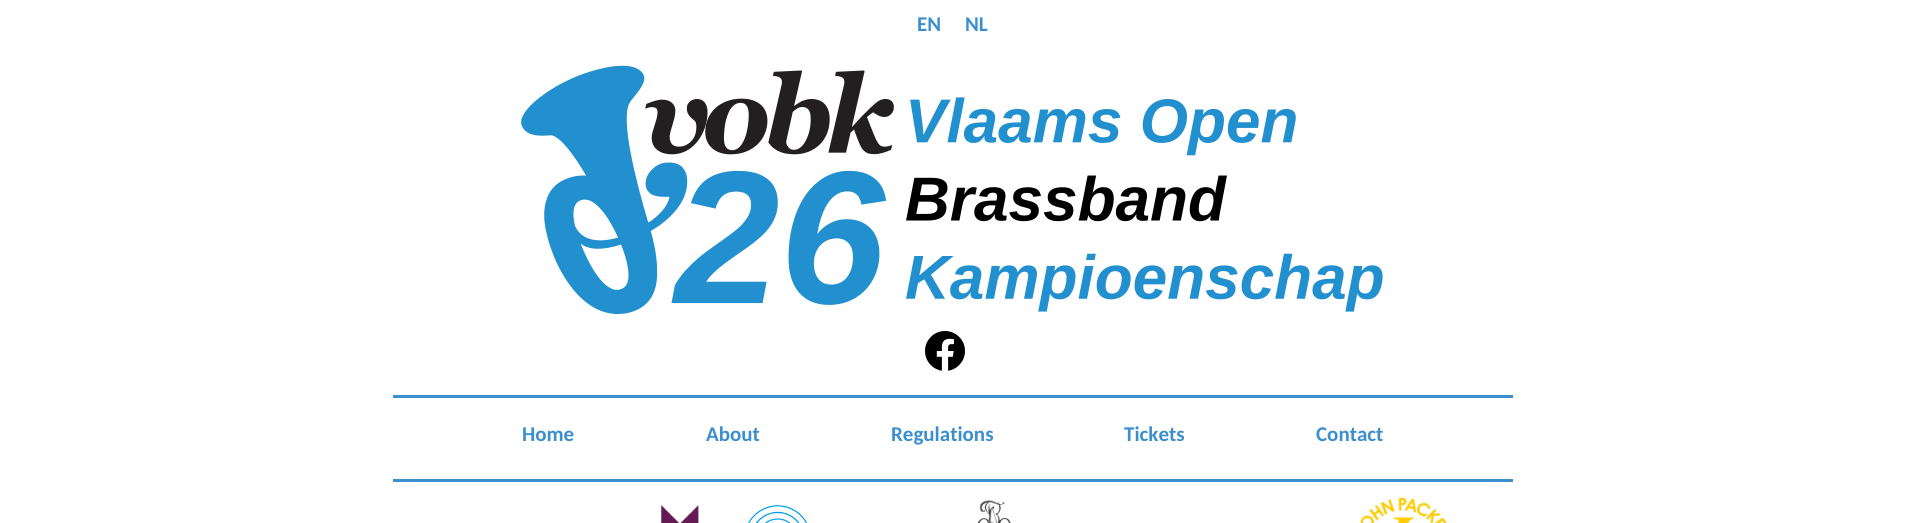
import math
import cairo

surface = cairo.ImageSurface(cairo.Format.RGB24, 1905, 523)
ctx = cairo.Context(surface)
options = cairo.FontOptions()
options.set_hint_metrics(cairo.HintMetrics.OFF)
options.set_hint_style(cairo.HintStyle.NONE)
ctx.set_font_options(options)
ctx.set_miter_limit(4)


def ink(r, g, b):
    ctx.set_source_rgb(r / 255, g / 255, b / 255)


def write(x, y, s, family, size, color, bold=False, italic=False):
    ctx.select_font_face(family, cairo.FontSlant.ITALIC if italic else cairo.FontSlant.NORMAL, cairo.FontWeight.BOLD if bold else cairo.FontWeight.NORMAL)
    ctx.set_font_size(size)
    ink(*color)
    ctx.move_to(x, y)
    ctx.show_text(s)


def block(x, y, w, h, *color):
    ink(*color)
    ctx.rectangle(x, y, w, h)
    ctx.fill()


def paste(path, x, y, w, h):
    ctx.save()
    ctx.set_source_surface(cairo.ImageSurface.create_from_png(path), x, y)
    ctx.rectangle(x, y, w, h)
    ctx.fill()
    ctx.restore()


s1 = dict(family="Carlito", size=21, color=(60, 143, 206), bold=True)

ink(255, 255, 255)
ctx.paint()
write(917, 31, "EN", **s1)
write(965, 31, "NL", **s1)
paste("pic1.png", 521, 65, 862, 249)
paste("pic2.png", 925, 331, 40, 40)
block(393, 395, 1120, 3, 60, 143, 206)
block(393, 479, 1120, 3, 60, 143, 206)
write(522, 441, "Home", **s1)
write(706, 441, "About", **s1)
write(891, 441, "Regulations", **s1)
write(1124, 441, "Tickets", **s1)
write(1316, 441, "Contact", **s1)
paste("pic3.png", 661, 504, 38, 19)
paste("pic4.png", 748, 505, 60, 18)
paste("pic5.png", 977, 500, 34, 23)
paste("pic6.png", 1360, 498, 88, 25)
surface.write_to_png("screenshot.png")
